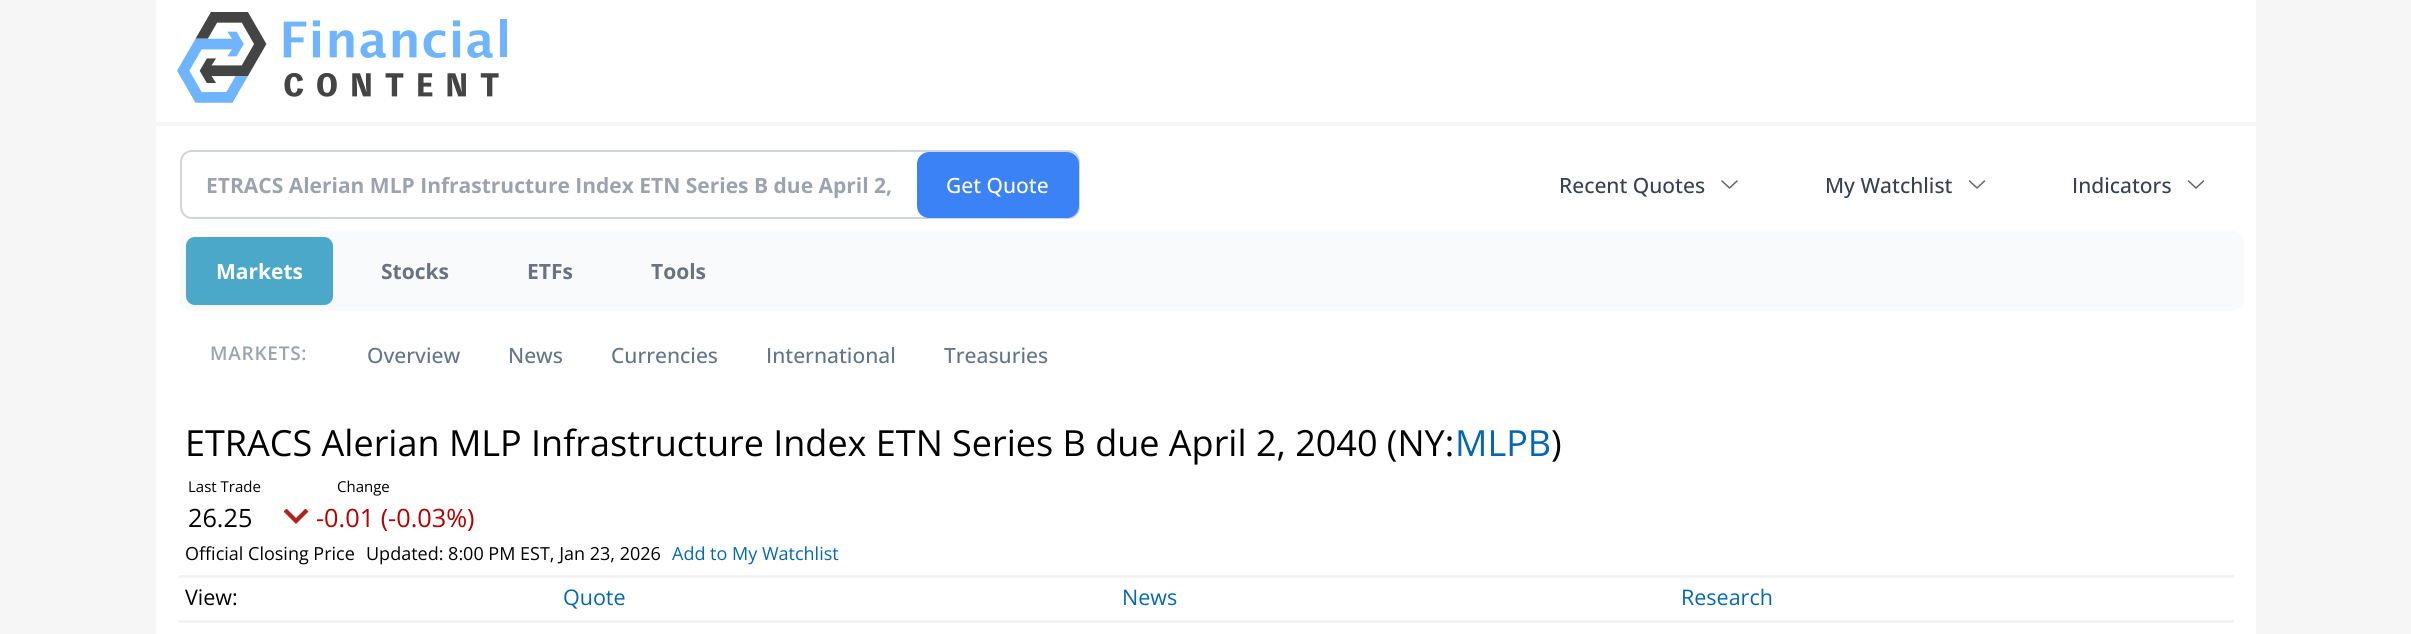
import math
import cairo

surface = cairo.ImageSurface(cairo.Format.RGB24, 2411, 634)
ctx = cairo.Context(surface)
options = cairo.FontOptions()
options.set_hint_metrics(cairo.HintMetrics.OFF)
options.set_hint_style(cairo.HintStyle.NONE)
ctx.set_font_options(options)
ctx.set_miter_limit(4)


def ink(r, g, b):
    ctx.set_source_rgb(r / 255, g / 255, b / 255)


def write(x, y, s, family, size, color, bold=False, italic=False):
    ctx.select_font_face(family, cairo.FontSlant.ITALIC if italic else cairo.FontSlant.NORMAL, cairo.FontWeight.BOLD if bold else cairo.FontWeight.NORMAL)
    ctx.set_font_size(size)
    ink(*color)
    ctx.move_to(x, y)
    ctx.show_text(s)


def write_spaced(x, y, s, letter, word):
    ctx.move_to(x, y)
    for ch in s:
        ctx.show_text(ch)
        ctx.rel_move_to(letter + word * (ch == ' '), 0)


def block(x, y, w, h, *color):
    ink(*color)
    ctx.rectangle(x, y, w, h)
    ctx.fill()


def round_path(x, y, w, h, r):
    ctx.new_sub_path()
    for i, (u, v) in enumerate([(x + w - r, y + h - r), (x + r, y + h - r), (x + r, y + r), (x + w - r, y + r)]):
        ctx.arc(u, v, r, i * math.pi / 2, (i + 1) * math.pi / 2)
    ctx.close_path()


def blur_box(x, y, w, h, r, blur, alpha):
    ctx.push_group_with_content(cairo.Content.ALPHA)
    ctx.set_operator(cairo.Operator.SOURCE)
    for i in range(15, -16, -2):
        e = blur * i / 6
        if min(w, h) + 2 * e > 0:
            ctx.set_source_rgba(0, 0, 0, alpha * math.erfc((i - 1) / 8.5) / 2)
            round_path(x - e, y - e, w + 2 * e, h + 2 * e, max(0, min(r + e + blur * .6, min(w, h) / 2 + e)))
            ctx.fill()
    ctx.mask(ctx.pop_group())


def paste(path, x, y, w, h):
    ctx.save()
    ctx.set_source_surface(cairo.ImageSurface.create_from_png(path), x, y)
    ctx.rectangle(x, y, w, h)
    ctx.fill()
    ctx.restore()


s1 = dict(family="Open Sans", size=21, color=(156, 163, 175), bold=True)
s2 = dict(family="Open Sans Medium", size=21, color=(255, 255, 255))
s3 = dict(family="Open Sans Medium", size=21, color=(55, 65, 81))
s4 = dict(family="Open Sans", size=21, color=(255, 255, 255), bold=True)
s5 = dict(family="Open Sans", size=21, color=(107, 114, 128), bold=True)
s6 = dict(family="Open Sans Medium", size=21, color=(100, 116, 139))
s7 = dict(family="Open Sans", size=36, color=(0, 0, 0))
s8 = dict(family="Open Sans", size=36, color=(4, 102, 182))
s9 = dict(family="Open Sans", size=15, color=(0, 0, 0))
s10 = dict(family="Open Sans", size=25.25, color=(0, 0, 0))
s11 = dict(family="Open Sans", size=25.25, color=(181, 0, 0))
s12 = dict(family="Open Sans", size=18, color=(0, 0, 0))
s13 = dict(family="Open Sans", size=18, color=(4, 102, 182))
s14 = dict(family="Open Sans", size=21.5, color=(0, 0, 0))
s15 = dict(family="Open Sans", size=21.5, color=(4, 102, 182))

ink(246, 246, 246)
ctx.paint()
block(156, 0, 2100, 122, 255, 255, 255)
paste("pic1.png", 177, 12, 330, 91)
block(156, 126, 2100, 508, 255, 255, 255)
round_path(181, 151, 898, 67, 11)
ink(209, 213, 219)
ctx.stroke()
write(206, 193, "ETRACS Alerian MLP Infrastructure Index ETN Series B due April 2,", **s1)
ink(59, 130, 246)
round_path(917, 152, 162, 66, 12)
ctx.fill()
write(946, 193, "Get Quote", **s2)
write(1559, 193, "Recent Quotes", **s3)
ctx.new_path()
ctx.move_to(1737, 181)
ctx.line_to(1729.5, 188)
ctx.line_to(1722, 181)
ink(102, 102, 102)
ctx.set_line_width(1.5)
ctx.set_line_cap(cairo.LineCap.ROUND)
ctx.set_line_join(cairo.LineJoin.ROUND)
ctx.stroke()
write(1825, 193, "My Watchlist", **s3)
ctx.new_path()
ctx.move_to(1984.5, 181)
ctx.line_to(1977, 188)
ctx.line_to(1969.5, 181)
ink(102, 102, 102)
ctx.stroke()
write(2072, 193, "Indicators", **s3)
ctx.new_path()
ctx.move_to(2203.5, 181)
ctx.line_to(2196, 188)
ctx.line_to(2188.5, 181)
ink(102, 102, 102)
ctx.stroke()
ink(248, 250, 252)
round_path(180, 231, 2064, 80, 12)
ctx.fill()
ink(0, 0, 0)
blur_box(186, 239, 147, 67, 9, 1.5, 0.05)
ink(76, 168, 200)
round_path(186, 237, 147, 68, 9)
ctx.fill()
write(216, 279, "Markets", **s4)
write(381, 279, "Stocks", **s5)
write(527, 279, "ETFs", **s5)
write(651, 279, "Tools", **s5)
ctx.select_font_face("Open Sans SemiBold")
ctx.set_font_size(19)
ink(156, 163, 175)
write_spaced(210, 360, "MARKETS:", 0.75, 0)
write(367, 363, "Overview", **s6)
write(508, 363, "News", **s6)
write(611, 363, "Currencies", **s6)
write(766, 363, "International", **s6)
write(944, 363, "Treasuries", **s6)
write(185, 456, "ETRACS Alerian MLP Infrastructure Index ETN Series B due April 2, 2040 (NY:", **s7)
write(1455, 456, "MLPB", **s8)
write(1551, 456, ")", **s7)
write(188, 492, "Last Trade", **s9)
write(188, 527, "26.25", **s10)
write(337, 492, "Change", **s9)
write(316, 527, "-0.01 (-0.03%)", **s11)
ctx.save()
ctx.rectangle(284, 509, 25, 16)
ctx.clip()
ink(179, 35, 23)
ctx.new_path()
ctx.move_to(305.5, 508.5)
ctx.line_to(308.5, 511.5)
ctx.line_to(296, 524)
ctx.line_to(283.5, 511.5)
ctx.line_to(286.5, 508.5)
ctx.line_to(296, 518)
ctx.close_path()
ctx.fill()
ctx.restore()
write(185, 560, "Official Closing Price", **s12)
write(366, 560, "Updated: 8:00 PM EST, Jan 23, 2026", **s12)
write(672, 560, "Add to My Watchlist", **s13)
block(179, 575, 2055, 3, 243, 243, 243)
block(179, 620, 2055, 3, 243, 243, 243)
write(185, 605, "View:", **s14)
write(563, 605, "Quote", **s15)
write(1122, 605, "News", **s15)
write(1681, 605, "Research", **s15)
surface.write_to_png("screenshot.png")
